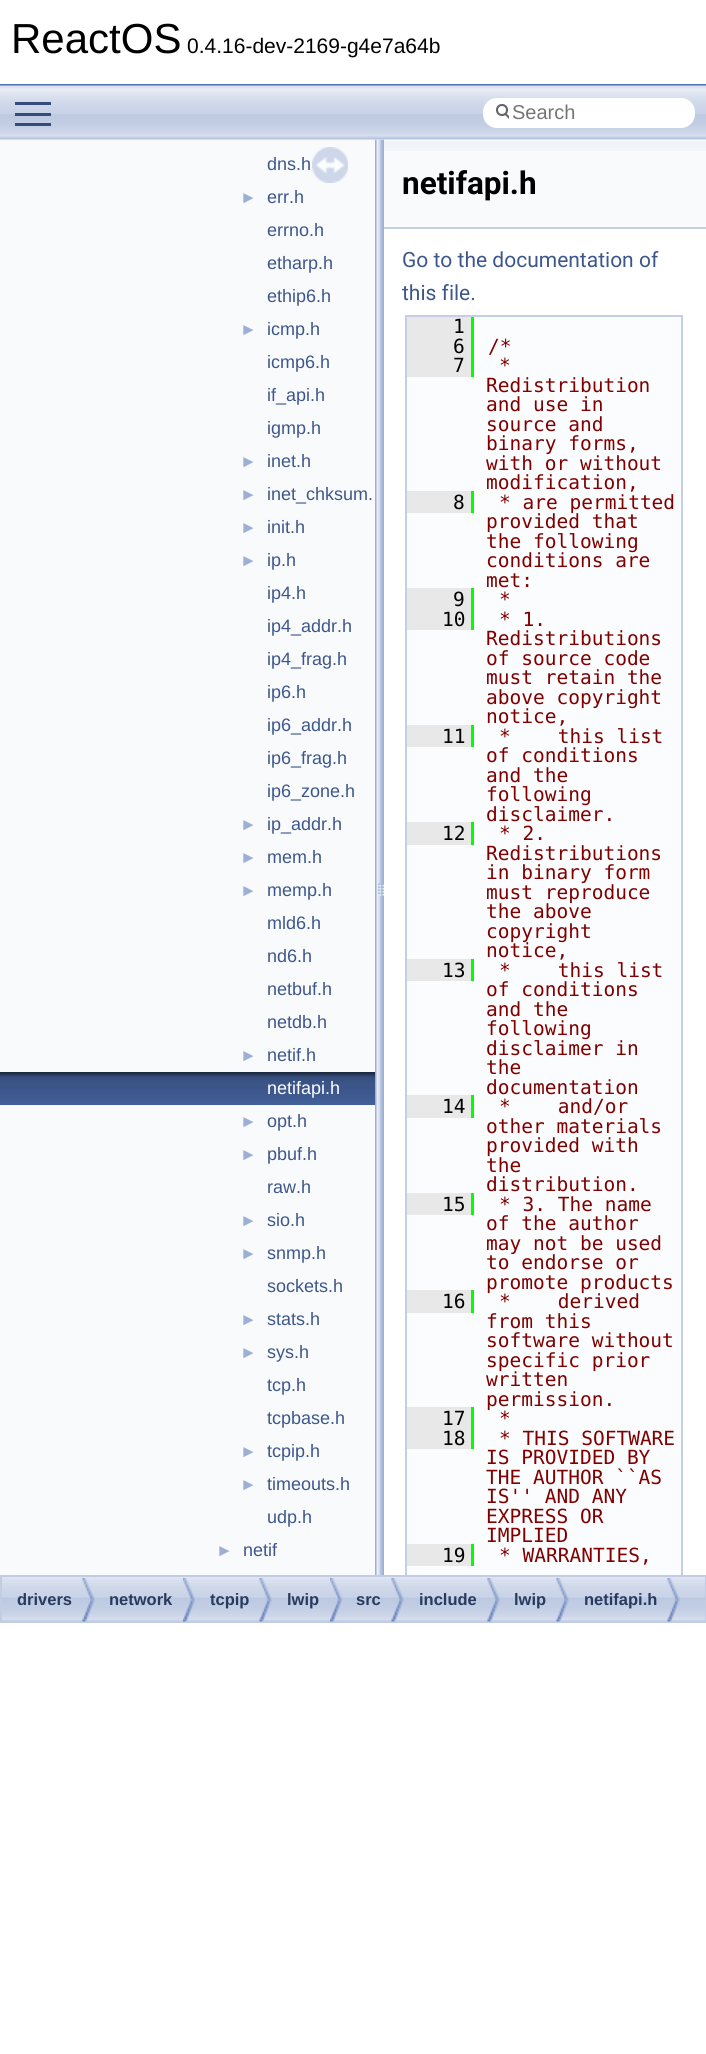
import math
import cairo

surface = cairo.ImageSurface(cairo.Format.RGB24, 706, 2054)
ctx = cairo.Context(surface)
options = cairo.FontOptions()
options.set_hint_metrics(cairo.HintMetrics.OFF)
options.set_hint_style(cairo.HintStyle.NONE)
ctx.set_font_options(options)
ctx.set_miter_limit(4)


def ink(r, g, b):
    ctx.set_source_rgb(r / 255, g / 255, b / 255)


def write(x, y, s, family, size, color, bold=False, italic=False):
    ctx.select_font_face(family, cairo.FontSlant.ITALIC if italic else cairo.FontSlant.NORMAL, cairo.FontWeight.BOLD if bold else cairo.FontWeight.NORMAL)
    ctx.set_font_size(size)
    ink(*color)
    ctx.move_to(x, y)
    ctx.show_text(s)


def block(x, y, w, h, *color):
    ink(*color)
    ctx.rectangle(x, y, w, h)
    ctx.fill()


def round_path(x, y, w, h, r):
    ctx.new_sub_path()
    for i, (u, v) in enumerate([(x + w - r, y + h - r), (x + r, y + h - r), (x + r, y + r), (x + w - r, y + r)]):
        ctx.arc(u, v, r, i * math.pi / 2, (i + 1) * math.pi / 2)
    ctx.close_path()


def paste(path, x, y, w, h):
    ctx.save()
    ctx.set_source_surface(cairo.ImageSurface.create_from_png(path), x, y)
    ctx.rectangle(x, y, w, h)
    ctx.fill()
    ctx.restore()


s1 = dict(family="Liberation Sans", size=42, color=(0, 0, 0))
s2 = dict(family="Liberation Sans", size=21, color=(0, 0, 0))
s3 = dict(family="Liberation Sans", size=20, color=(117, 117, 117))
s4 = dict(family="Liberation Sans", size=18, color=(61, 87, 140))
s5 = dict(family="Liberation Sans", size=17, color=(156, 175, 212))
s6 = dict(family="Liberation Sans", size=18, color=(255, 255, 255))
s7 = dict(family="Roboto", size=31.5, color=(0, 0, 0), bold=True)
s8 = dict(family="Roboto", size=21, color=(61, 87, 140))
s9 = dict(family="DejaVu Sans Mono", size=19.5, color=(0, 0, 0))
s10 = dict(family="DejaVu Sans Mono", size=19.5, color=(128, 0, 0))
s11 = dict(family="Liberation Sans", size=16.5, color=(40, 58, 93), bold=True)

ink(255, 255, 255)
ctx.paint()
block(0, 84, 706, 2, 83, 115, 180)
write(11, 53, "ReactOS", **s1)
write(187, 53, "0.4.16-dev-2169-g4e7a64b", **s2)
paste("pic4.png", 375, 139, 9, 1436)
paste("pic1.png", 0, 85, 706, 55)
block(15, 113, 36, 3, 54, 77, 124)
block(15, 102, 36, 3, 54, 77, 124)
block(15, 123, 36, 3, 54, 77, 124)
ink(255, 255, 255)
round_path(483, 98, 212, 30, 14)
ctx.fill()
ctx.arc(502, 110, 5, 0, 2 * math.pi)
ink(101, 101, 101)
ctx.set_line_width(2.1)
ctx.stroke()
ctx.save()
ctx.rectangle(494, 98, 15, 28)
ctx.clip()
ctx.new_path()
ctx.move_to(505.5, 114)
ctx.line_to(510, 118.5)
ctx.set_line_cap(cairo.LineCap.ROUND)
ctx.stroke()
ctx.restore()
write(512, 119, "Search", **s3)
block(0, 140, 375, 1435, 249, 250, 252)
paste("pic2.png", 312, 147, 36, 36)
write(267, 170, "dns.h", **s4)
write(240, 203, "►", **s5)
write(267, 203, "err.h", **s4)
write(267, 236, "errno.h", **s4)
write(267, 269, "etharp.h", **s4)
write(267, 302, "ethip6.h", **s4)
write(240, 335, "►", **s5)
write(267, 335, "icmp.h", **s4)
write(267, 368, "icmp6.h", **s4)
write(267, 401, "if_api.h", **s4)
write(267, 434, "igmp.h", **s4)
write(240, 467, "►", **s5)
write(267, 467, "inet.h", **s4)
write(240, 500, "►", **s5)
write(267, 500, "inet_chksum.", **s4)
write(240, 533, "►", **s5)
write(267, 533, "init.h", **s4)
write(240, 566, "►", **s5)
write(267, 566, "ip.h", **s4)
write(267, 599, "ip4.h", **s4)
write(267, 632, "ip4_addr.h", **s4)
write(267, 665, "ip4_frag.h", **s4)
write(267, 698, "ip6.h", **s4)
write(267, 731, "ip6_addr.h", **s4)
write(267, 764, "ip6_frag.h", **s4)
write(267, 797, "ip6_zone.h", **s4)
write(240, 830, "►", **s5)
write(267, 830, "ip_addr.h", **s4)
write(240, 863, "►", **s5)
write(267, 863, "mem.h", **s4)
write(240, 896, "►", **s5)
write(267, 896, "memp.h", **s4)
write(267, 929, "mld6.h", **s4)
write(267, 962, "nd6.h", **s4)
write(267, 995, "netbuf.h", **s4)
write(267, 1028, "netdb.h", **s4)
write(240, 1061, "►", **s5)
write(267, 1061, "netif.h", **s4)
paste("pic3.png", 0, 1072, 375, 33)
write(267, 1094, "netifapi.h", **s6)
write(240, 1127, "►", **s5)
write(267, 1127, "opt.h", **s4)
write(240, 1160, "►", **s5)
write(267, 1160, "pbuf.h", **s4)
write(267, 1193, "raw.h", **s4)
write(240, 1226, "►", **s5)
write(267, 1226, "sio.h", **s4)
write(240, 1259, "►", **s5)
write(267, 1259, "snmp.h", **s4)
write(267, 1292, "sockets.h", **s4)
write(240, 1325, "►", **s5)
write(267, 1325, "stats.h", **s4)
write(240, 1358, "►", **s5)
write(267, 1358, "sys.h", **s4)
write(267, 1391, "tcp.h", **s4)
write(267, 1424, "tcpbase.h", **s4)
write(240, 1457, "►", **s5)
write(267, 1457, "tcpip.h", **s4)
write(240, 1490, "►", **s5)
write(267, 1490, "timeouts.h", **s4)
write(267, 1523, "udp.h", **s4)
write(216, 1556, "►", **s5)
write(243, 1556, "netif", **s4)
block(384, 140, 322, 87, 249, 250, 252)
paste("pic5.png", 384, 141, 322, 10)
block(384, 227, 322, 2, 196, 207, 229)
write(402, 194, "netifapi.h", **s7)
write(402, 267, "Go to the documentation of", **s8)
write(402, 300, "this file.", **s8)
block(407, 317, 274, 1258, 251, 252, 253)
ctx.save()
ctx.rectangle(384, 140, 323, 1435)
ctx.clip()
ctx.rectangle(406, 316, 276, 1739)
ink(196, 207, 229)
ctx.set_line_width(2)
ctx.stroke()
ctx.restore()
block(407, 317, 64, 60, 232, 232, 232)
write(453, 333, "1", **s9)
block(471, 317, 3, 60, 0, 255, 0)
write(453, 353, "6", **s9)
write(488, 353, "/*", **s10)
write(453, 372, "7", **s9)
write(499, 372, "*", **s10)
write(486, 392, "Redistribution", **s10)
write(486, 411, "and use in", **s10)
write(486, 431, "source and", **s10)
write(486, 450, "binary forms,", **s10)
write(486, 470, "with or without", **s10)
write(486, 489, "modification,", **s10)
block(407, 491, 64, 22, 232, 232, 232)
write(453, 509, "8", **s9)
block(471, 491, 3, 22, 0, 255, 0)
write(499, 509, "* are permitted", **s10)
write(486, 528, "provided that", **s10)
write(486, 548, "the following", **s10)
write(486, 567, "conditions are", **s10)
write(486, 587, "met:", **s10)
block(407, 588, 64, 42, 232, 232, 232)
write(453, 606, "9", **s9)
block(471, 588, 3, 42, 0, 255, 0)
write(499, 606, "*", **s10)
write(442, 626, "10", **s9)
write(499, 626, "* 1.", **s10)
write(486, 645, "Redistributions", **s10)
write(486, 665, "of source code", **s10)
write(486, 684, "must retain the", **s10)
write(486, 704, "above copyright", **s10)
write(486, 723, "notice,", **s10)
block(407, 725, 64, 22, 232, 232, 232)
write(442, 743, "11", **s9)
block(471, 725, 3, 22, 0, 255, 0)
write(499, 743, "*    this list", **s10)
write(486, 762, "of conditions", **s10)
write(486, 782, "and the", **s10)
write(486, 801, "following", **s10)
write(486, 821, "disclaimer.", **s10)
block(407, 822, 64, 23, 232, 232, 232)
write(442, 840, "12", **s9)
block(471, 822, 3, 23, 0, 255, 0)
write(499, 840, "* 2.", **s10)
write(486, 860, "Redistributions", **s10)
write(486, 879, "in binary form", **s10)
write(486, 899, "must reproduce", **s10)
write(486, 918, "the above", **s10)
write(486, 938, "copyright", **s10)
write(486, 957, "notice,", **s10)
block(407, 959, 64, 22, 232, 232, 232)
write(442, 977, "13", **s9)
block(471, 959, 3, 22, 0, 255, 0)
write(499, 977, "*    this list", **s10)
write(486, 996, "of conditions", **s10)
write(486, 1016, "and the", **s10)
write(486, 1035, "following", **s10)
write(486, 1055, "disclaimer in", **s10)
write(486, 1074, "the", **s10)
write(486, 1094, "documentation", **s10)
block(407, 1095, 64, 23, 232, 232, 232)
write(442, 1113, "14", **s9)
block(471, 1095, 3, 23, 0, 255, 0)
write(499, 1113, "*    and/or", **s10)
write(486, 1133, "other materials", **s10)
write(486, 1152, "provided with", **s10)
write(486, 1172, "the", **s10)
write(486, 1191, "distribution.", **s10)
block(407, 1193, 64, 22, 232, 232, 232)
write(442, 1211, "15", **s9)
block(471, 1193, 3, 22, 0, 255, 0)
write(499, 1211, "* 3. The name", **s10)
write(486, 1230, "of the author", **s10)
write(486, 1250, "may not be used", **s10)
write(486, 1269, "to endorse or", **s10)
write(486, 1289, "promote products", **s10)
block(407, 1290, 64, 23, 232, 232, 232)
write(442, 1308, "16", **s9)
block(471, 1290, 3, 23, 0, 255, 0)
write(499, 1308, "*    derived", **s10)
write(486, 1328, "from this", **s10)
write(486, 1347, "software without", **s10)
write(486, 1367, "specific prior", **s10)
write(486, 1386, "written", **s10)
write(486, 1406, "permission.", **s10)
block(407, 1407, 64, 42, 232, 232, 232)
write(442, 1425, "17", **s9)
block(471, 1407, 3, 42, 0, 255, 0)
write(499, 1425, "*", **s10)
write(442, 1445, "18", **s9)
write(499, 1445, "* THIS SOFTWARE", **s10)
write(486, 1464, "IS PROVIDED BY", **s10)
write(486, 1484, "THE AUTHOR ``AS", **s10)
write(486, 1503, "IS'' AND ANY", **s10)
write(486, 1523, "EXPRESS OR", **s10)
write(486, 1542, "IMPLIED", **s10)
block(407, 1544, 64, 22, 232, 232, 232)
write(442, 1562, "19", **s9)
block(471, 1544, 3, 22, 0, 255, 0)
write(499, 1562, "* WARRANTIES,", **s10)
paste("pic6.png", 2, 1577, 703, 44)
ctx.rectangle(1, 1576, 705, 46)
ink(194, 205, 228)
ctx.set_line_width(2)
ctx.stroke()
paste("pic7.png", 82, 1578, 13, 44)
write(17, 1605, "drivers", **s11)
paste("pic8.png", 183, 1578, 12, 44)
write(109, 1605, "network", **s11)
paste("pic7.png", 259, 1578, 13, 44)
write(210, 1605, "tcpip", **s11)
paste("pic9.png", 330, 1578, 12, 44)
write(287, 1605, "lwip", **s11)
paste("pic10.png", 391, 1578, 13, 44)
write(356, 1605, "src", **s11)
paste("pic7.png", 487, 1578, 13, 44)
write(419, 1605, "include", **s11)
paste("pic10.png", 556, 1578, 13, 44)
write(514, 1605, "lwip", **s11)
paste("pic10.png", 667, 1578, 13, 44)
write(584, 1605, "netifapi.h", **s11)
surface.write_to_png("screenshot.png")
